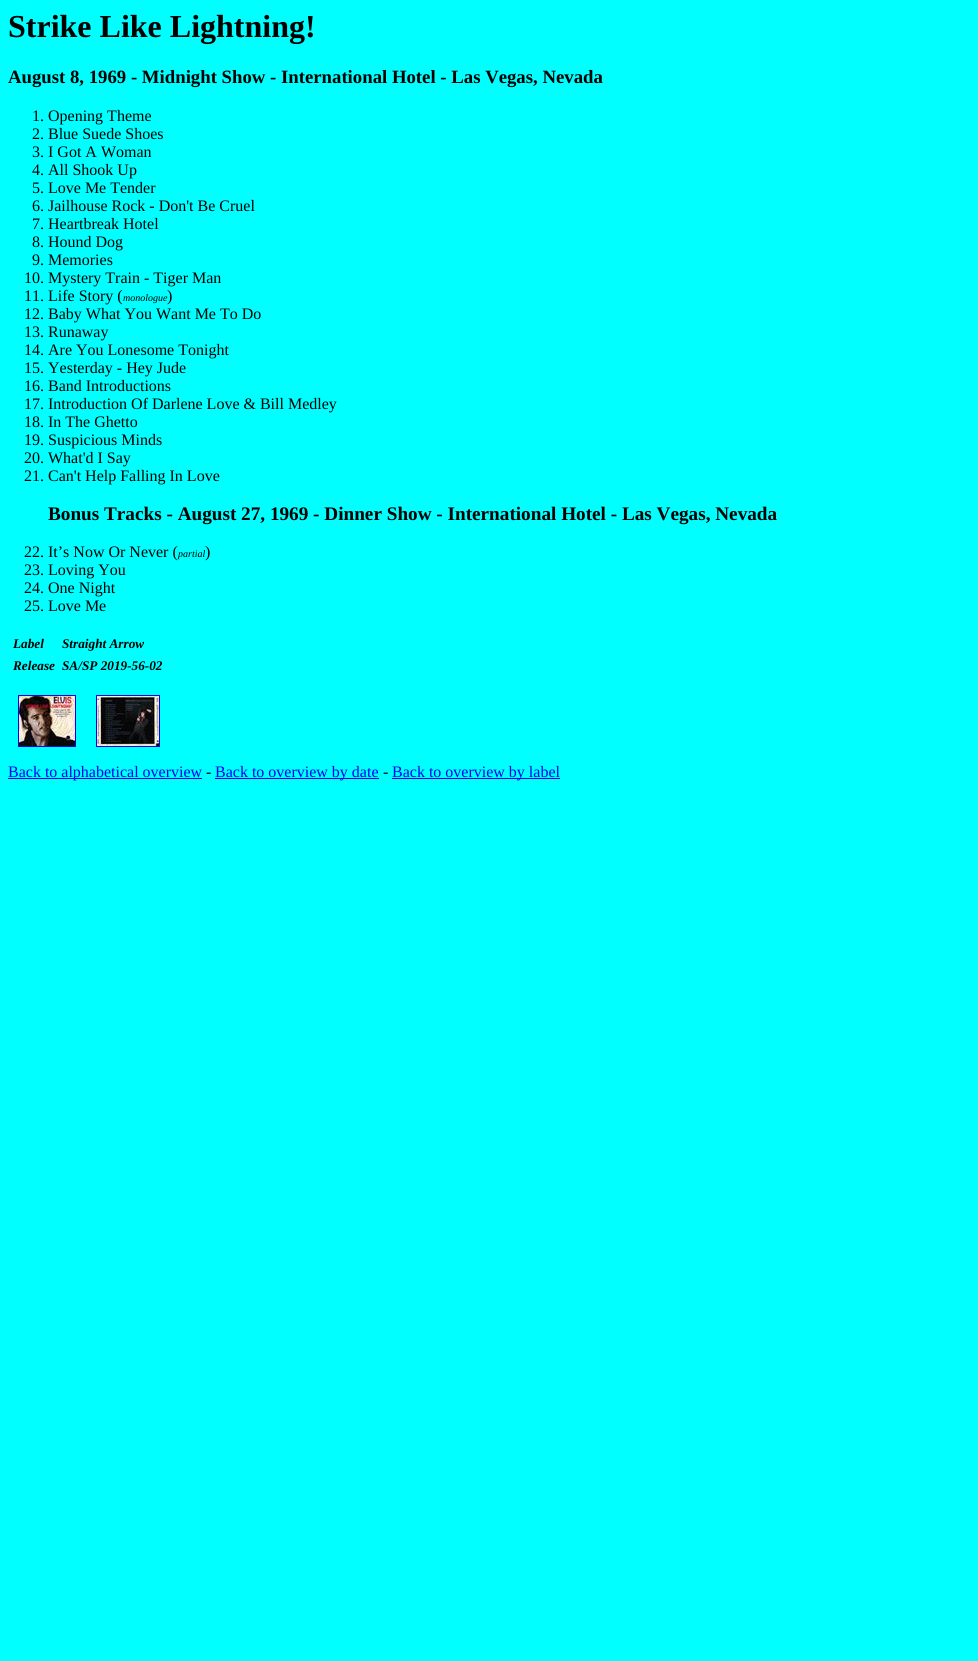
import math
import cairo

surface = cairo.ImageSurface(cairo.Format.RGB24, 978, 1661)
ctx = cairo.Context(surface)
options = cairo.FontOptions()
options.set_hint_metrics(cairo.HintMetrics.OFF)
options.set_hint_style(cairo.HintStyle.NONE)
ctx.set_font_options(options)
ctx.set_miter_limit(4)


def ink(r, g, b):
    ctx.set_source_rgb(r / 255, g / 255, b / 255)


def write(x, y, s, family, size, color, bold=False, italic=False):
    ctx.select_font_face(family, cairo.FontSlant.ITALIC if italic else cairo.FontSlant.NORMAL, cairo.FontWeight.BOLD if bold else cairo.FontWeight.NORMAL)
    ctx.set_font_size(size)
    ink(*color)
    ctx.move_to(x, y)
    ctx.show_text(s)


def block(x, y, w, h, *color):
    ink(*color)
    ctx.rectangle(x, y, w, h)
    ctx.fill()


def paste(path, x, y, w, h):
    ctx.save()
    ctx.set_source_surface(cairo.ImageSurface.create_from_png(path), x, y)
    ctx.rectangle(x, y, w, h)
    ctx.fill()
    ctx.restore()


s1 = dict(family="Liberation Serif", size=32, color=(0, 0, 0), bold=True)
s2 = dict(family="Liberation Serif", size=18.75, color=(0, 0, 0), bold=True)
s3 = dict(family="Liberation Serif", size=16, color=(0, 0, 0))
s4 = dict(family="Liberation Serif", size=10, color=(0, 0, 0), italic=True)
s5 = dict(family="Liberation Serif", size=19.2, color=(0, 0, 0), bold=True)
s6 = dict(family="Liberation Serif", size=13.25, color=(0, 0, 0), bold=True, italic=True)
s7 = dict(family="Liberation Serif", size=16, color=(0, 0, 238))

ink(0, 255, 255)
ctx.paint()
write(8, 37, "Strike Like Lightning!", **s1)
write(8, 83, "August 8, 1969 - Midnight Show - International Hotel - Las Vegas, Nevada", **s2)
write(32, 121, "1. Opening Theme", **s3)
write(32, 139, "2. Blue Suede Shoes", **s3)
write(32, 157, "3. I Got A Woman", **s3)
write(32, 175, "4. All Shook Up", **s3)
write(32, 193, "5. Love Me Tender", **s3)
write(32, 211, "6. Jailhouse Rock - Don't Be Cruel", **s3)
write(32, 229, "7. Heartbreak Hotel", **s3)
write(32, 247, "8. Hound Dog", **s3)
write(32, 265, "9. Memories", **s3)
write(24, 283, "10. Mystery Train - Tiger Man", **s3)
write(24, 301, "11. Life Story (", **s3)
write(123, 301, "monologue", **s4)
write(167, 301, ")", **s3)
write(24, 319, "12. Baby What You Want Me To Do", **s3)
write(24, 337, "13. Runaway", **s3)
write(24, 355, "14. Are You Lonesome Tonight", **s3)
write(24, 373, "15. Yesterday - Hey Jude", **s3)
write(24, 391, "16. Band Introductions", **s3)
write(24, 409, "17. Introduction Of Darlene Love & Bill Medley", **s3)
write(24, 427, "18. In The Ghetto", **s3)
write(24, 445, "19. Suspicious Minds", **s3)
write(24, 463, "20. What'd I Say", **s3)
write(24, 481, "21. Can't Help Falling In Love", **s3)
write(48, 520, "Bonus Tracks - August 27, 1969 - Dinner Show - International Hotel - Las Vegas, Nevada", **s5)
write(24, 557, "22. It’s Now Or Never (", **s3)
write(178, 557, "partial", **s4)
write(205, 557, ")", **s3)
write(24, 575, "23. Loving You", **s3)
write(24, 593, "24. One Night", **s3)
write(24, 611, "25. Love Me", **s3)
write(13, 648, "Label", **s6)
write(62, 648, "Straight Arrow", **s6)
write(13, 670, "Release", **s6)
write(62, 670, "SA/SP 2019-56-02", **s6)
ctx.rectangle(18.5, 695.5, 57, 51)
ink(0, 0, 238)
ctx.set_line_width(1)
ctx.stroke()
ctx.rectangle(96.5, 695.5, 63, 51)
ctx.stroke()
paste("pic1.png", 19, 696, 56, 50)
paste("pic2.png", 97, 696, 62, 50)
block(8, 778, 194, 1, 0, 0, 238)
write(8, 777, "Back to alphabetical overview", **s7)
write(206, 777, "-", **s3)
block(215, 778, 164, 1, 0, 0, 238)
write(215, 777, "Back to overview by date", **s7)
write(383, 777, "-", **s3)
block(392, 778, 168, 1, 0, 0, 238)
write(392, 777, "Back to overview by label", **s7)
surface.write_to_png("screenshot.png")
